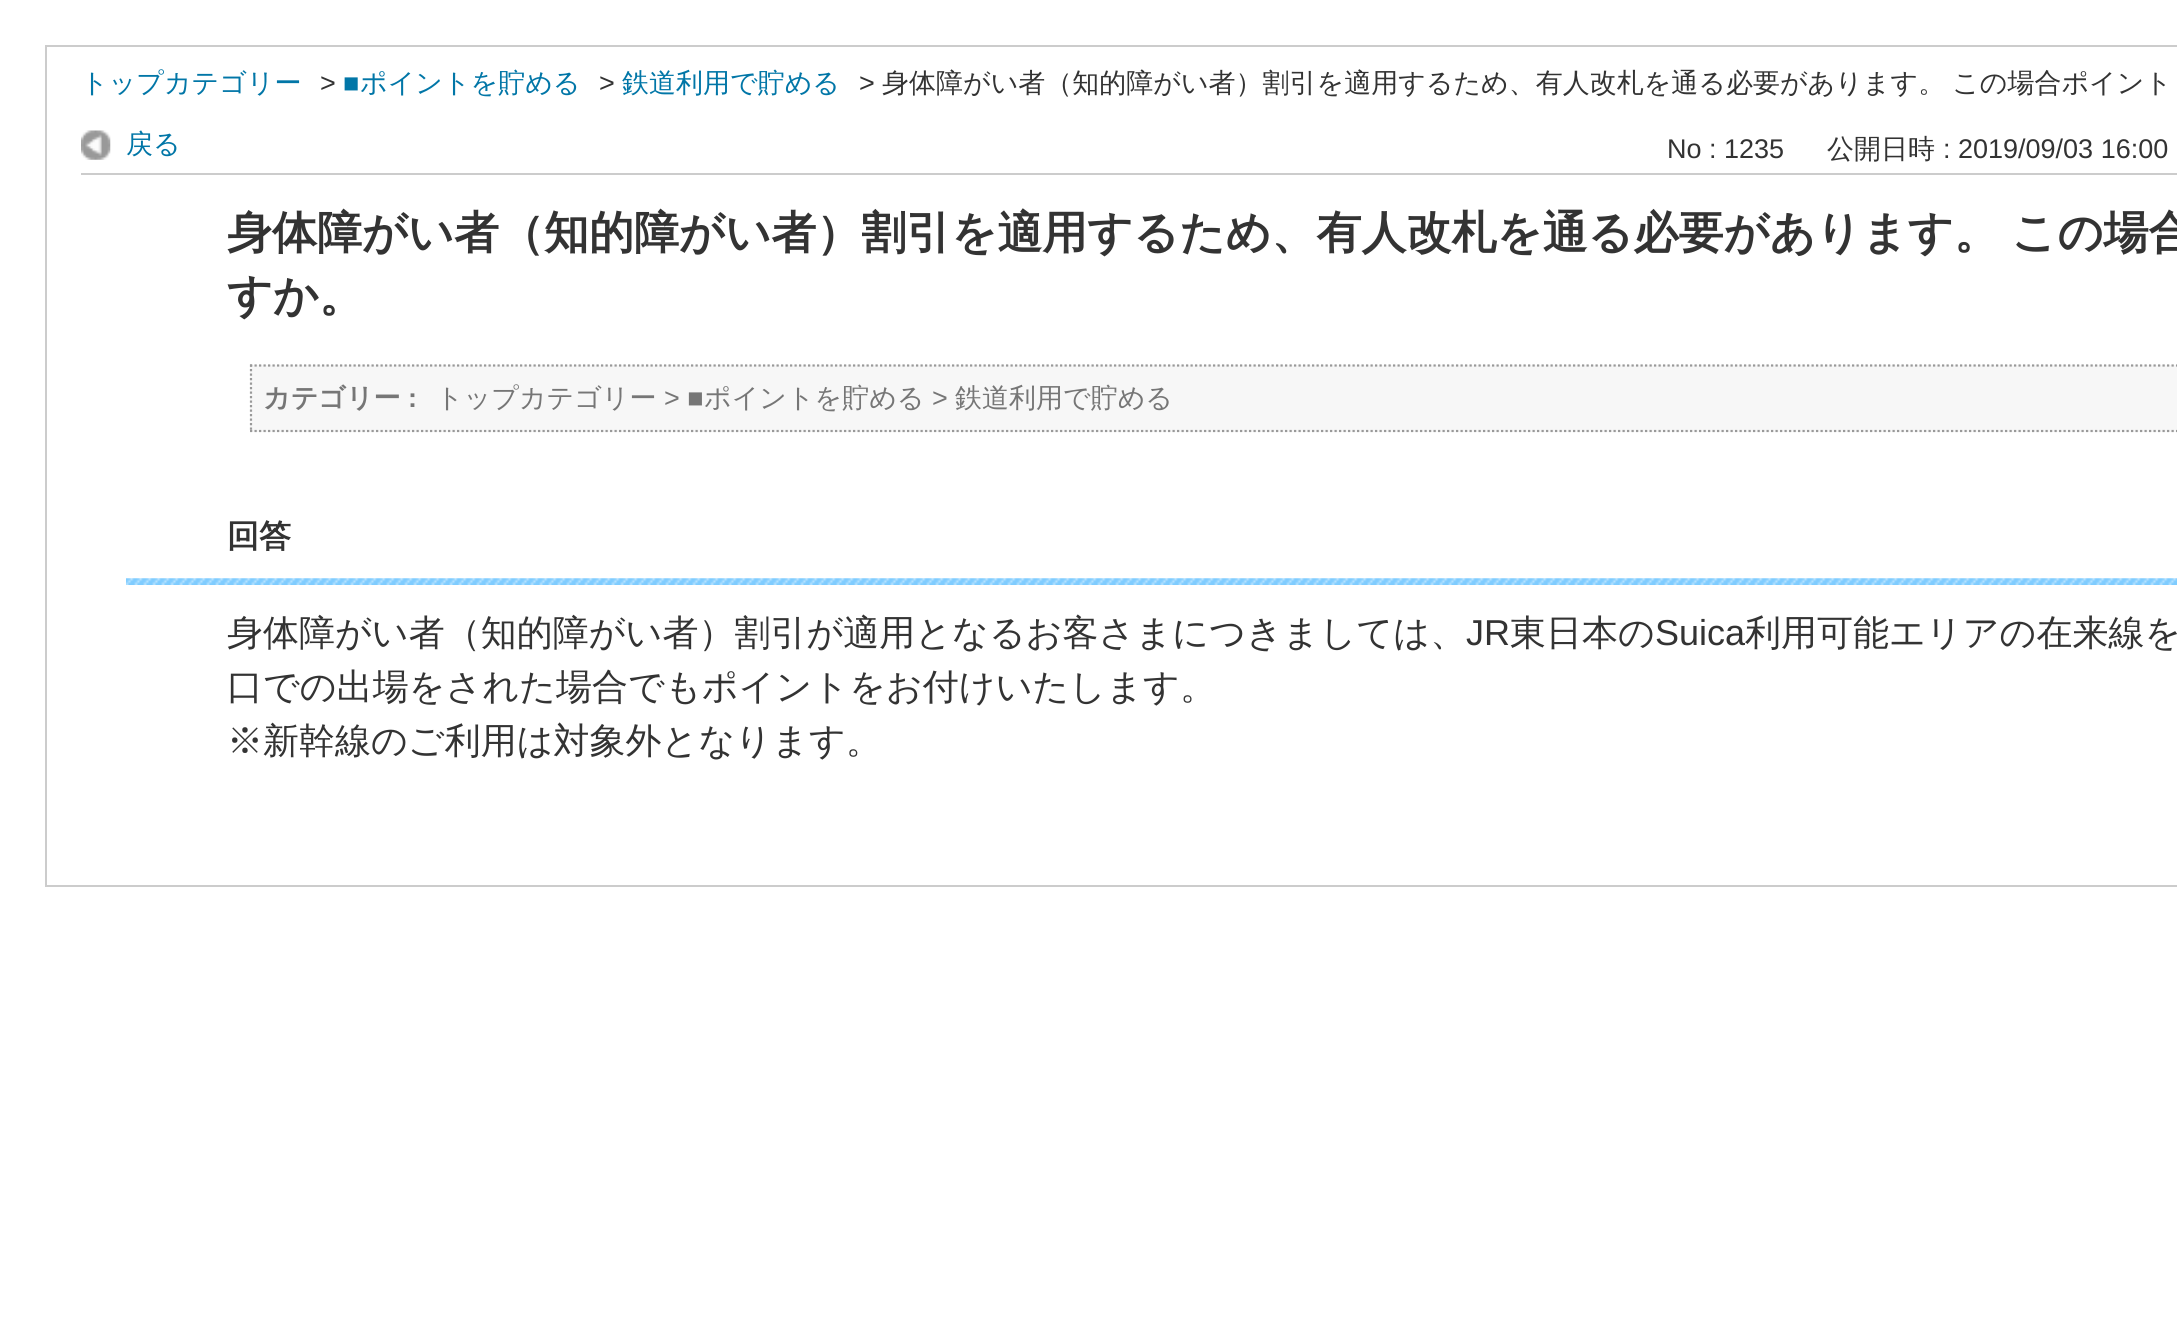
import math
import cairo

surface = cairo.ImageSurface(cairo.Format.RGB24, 2177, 1317)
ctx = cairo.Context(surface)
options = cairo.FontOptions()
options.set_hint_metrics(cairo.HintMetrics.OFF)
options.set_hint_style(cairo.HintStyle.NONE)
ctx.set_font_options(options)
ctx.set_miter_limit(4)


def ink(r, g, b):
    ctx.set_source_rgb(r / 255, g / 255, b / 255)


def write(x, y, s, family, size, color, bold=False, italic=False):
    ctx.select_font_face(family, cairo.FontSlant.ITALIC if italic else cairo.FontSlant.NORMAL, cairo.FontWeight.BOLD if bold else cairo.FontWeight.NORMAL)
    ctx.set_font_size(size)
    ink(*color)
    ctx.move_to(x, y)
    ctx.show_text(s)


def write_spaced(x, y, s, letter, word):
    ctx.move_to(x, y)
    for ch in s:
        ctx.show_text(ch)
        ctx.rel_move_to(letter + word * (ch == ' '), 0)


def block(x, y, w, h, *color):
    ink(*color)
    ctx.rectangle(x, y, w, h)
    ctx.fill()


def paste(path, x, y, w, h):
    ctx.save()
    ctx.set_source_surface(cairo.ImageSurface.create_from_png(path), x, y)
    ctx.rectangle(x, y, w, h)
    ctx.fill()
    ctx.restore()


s1 = dict(family="WenQuanYi Zen Hei Medium", size=27, color=(1, 118, 167))
s2 = dict(family="Liberation Sans", size=27, color=(51, 51, 51))
s3 = dict(family="Liberation Sans", size=27, color=(1, 118, 167))
s4 = dict(family="WenQuanYi Zen Hei Medium", size=27, color=(51, 51, 51))
s5 = dict(family="WenQuanYi Zen Hei", size=45, color=(51, 51, 51), bold=True)
s6 = dict(family="WenQuanYi Zen Hei", size=27, color=(118, 118, 118), bold=True)
s7 = dict(family="Liberation Sans", size=27, color=(118, 118, 118), bold=True)
s8 = dict(family="WenQuanYi Zen Hei Medium", size=27, color=(118, 118, 118))
s9 = dict(family="Liberation Sans", size=27, color=(118, 118, 118))
s10 = dict(family="WenQuanYi Zen Hei", size=32, color=(51, 51, 51), bold=True)
s11 = dict(family="WenQuanYi Zen Hei Medium", size=36, color=(51, 51, 51))
s12 = dict(family="Liberation Sans", size=36, color=(51, 51, 51))

ink(255, 255, 255)
ctx.paint()
ctx.rectangle(46, 46, 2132, 840)
ink(204, 204, 204)
ctx.stroke()
write(81, 92, "トップカテゴリー", **s1)
write(320, 92, ">", **s2)
write(343, 92, "■", **s3)
write(360, 92, "ポイントを貯める", **s1)
write(599, 92, ">", **s2)
write(622, 92, "鉄道利用で貯める", **s1)
write(859, 92, ">", **s2)
ctx.select_font_face("WenQuanYi Zen Hei Medium")
write_spaced(882, 92, "身体障がい者（知的障がい者）割引を適用するため、有人改札を通る必要があります。 この場合ポイント", 0, -1)
block(81, 173, 2096, 2, 204, 204, 204)
paste("pic1.png", 81, 130, 30, 30)
write(126, 153, "戻る", **s1)
write(1667, 158, "No : 1235", **s2)
write(1827, 158, "公開日時", **s4)
write(1943, 158, ": 2019/09/03 16:00", **s2)
ctx.select_font_face("WenQuanYi Zen Hei", cairo.FontSlant.NORMAL, cairo.FontWeight.BOLD)
ctx.set_font_size(45)
write_spaced(227, 248, "身体障がい者（知的障がい者）割引を適用するため、有人改札を通る必要があります。 この場合", 0, -1)
write(227, 311, "すか。", **s5)
block(250, 365, 1927, 67, 247, 247, 247)
ctx.new_path()
ctx.move_to(250, 365.5)
ctx.line_to(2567, 365.5)
ink(153, 153, 153)
ctx.set_line_width(2.2)
ctx.set_dash([2.25, 2.25])
ctx.stroke()
ctx.new_path()
ctx.move_to(250, 431)
ctx.line_to(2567, 431)
ctx.stroke()
ctx.new_path()
ctx.move_to(251, 364.5)
ctx.line_to(251, 432)
ctx.stroke()
write(263, 407, "カテゴリー", **s6)
write(408, 407, ":", **s7)
write(436, 407, "トップカテゴリー", **s8)
write(664, 407, "> ■", **s9)
write(704, 407, "ポイントを貯める", **s8)
write(932, 407, ">", **s9)
write(955, 407, "鉄道利用で貯める", **s8)
paste("pic2.png", 126, 578, 2051, 7)
write(227, 547, "回答", **s10)
write(227, 645, "身体障がい者（知的障がい者）割引が適用となるお客さまにつきましては、", **s11)
write(1466, 645, "JR", **s12)
write(1510, 645, "東日本の", **s11)
write(1655, 645, "Suica", **s12)
write(1745, 645, "利用可能エリアの在来線を", **s11)
write(227, 699, "口での出場をされた場合でもポイントをお付けいたします。", **s11)
write(227, 753, "※新幹線のご利用は対象外となります。", **s11)
surface.write_to_png("screenshot.png")
